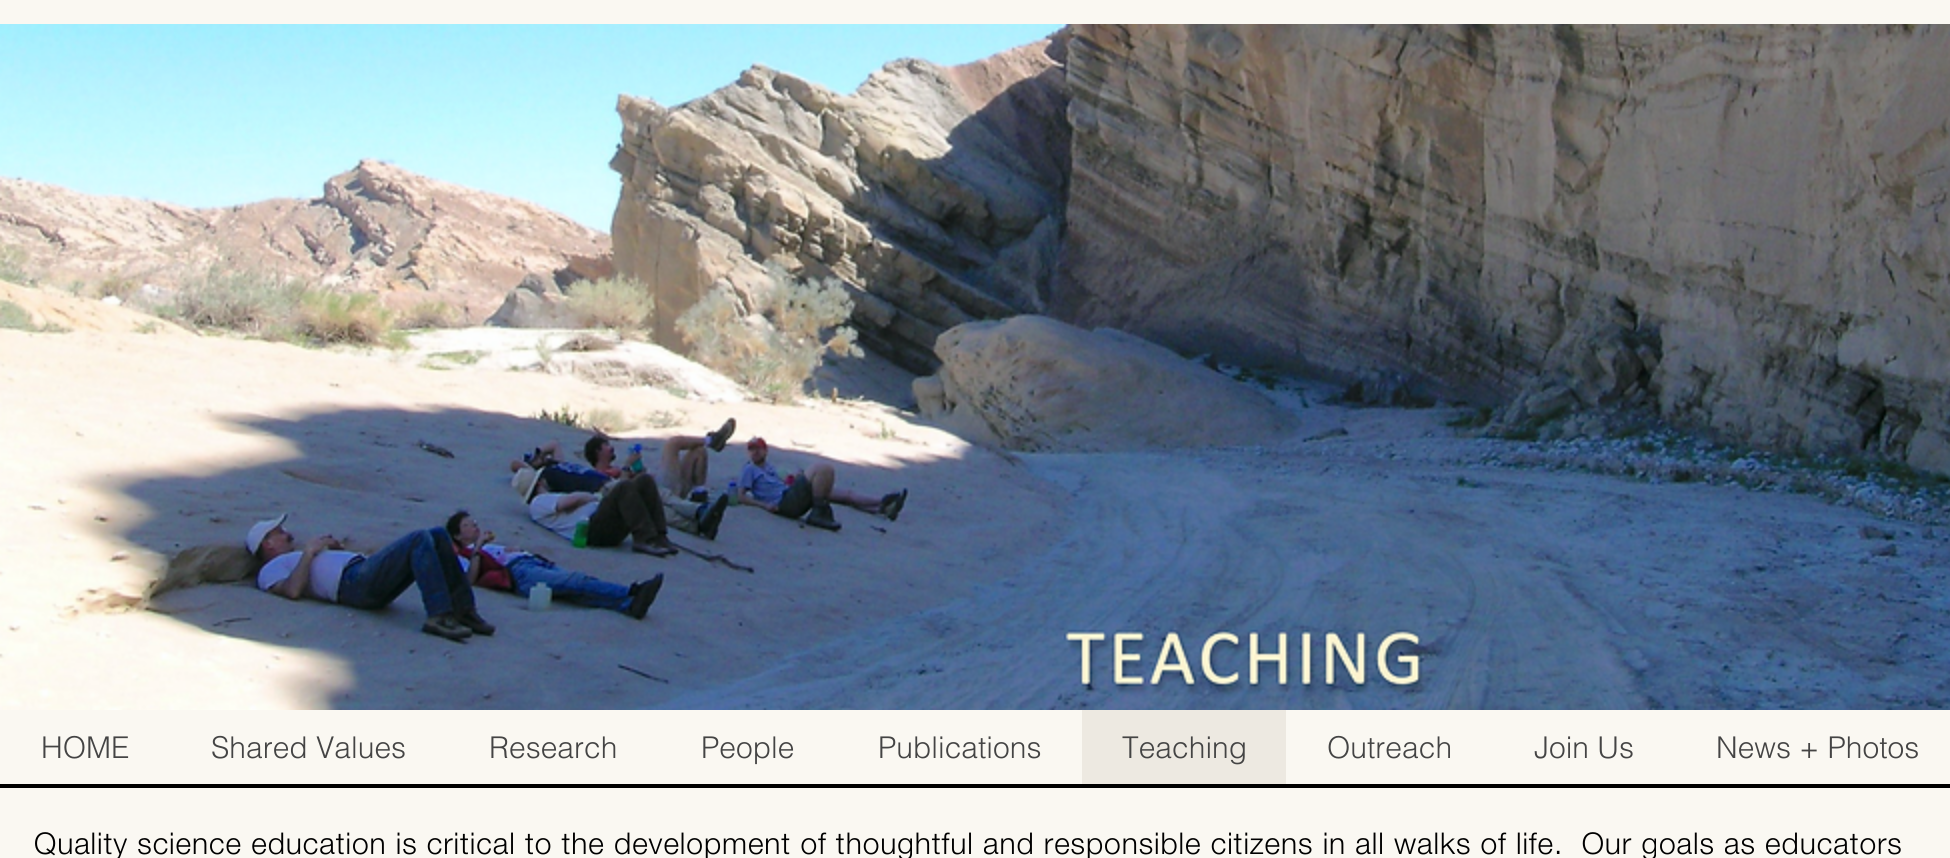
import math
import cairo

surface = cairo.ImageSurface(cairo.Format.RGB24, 1950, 858)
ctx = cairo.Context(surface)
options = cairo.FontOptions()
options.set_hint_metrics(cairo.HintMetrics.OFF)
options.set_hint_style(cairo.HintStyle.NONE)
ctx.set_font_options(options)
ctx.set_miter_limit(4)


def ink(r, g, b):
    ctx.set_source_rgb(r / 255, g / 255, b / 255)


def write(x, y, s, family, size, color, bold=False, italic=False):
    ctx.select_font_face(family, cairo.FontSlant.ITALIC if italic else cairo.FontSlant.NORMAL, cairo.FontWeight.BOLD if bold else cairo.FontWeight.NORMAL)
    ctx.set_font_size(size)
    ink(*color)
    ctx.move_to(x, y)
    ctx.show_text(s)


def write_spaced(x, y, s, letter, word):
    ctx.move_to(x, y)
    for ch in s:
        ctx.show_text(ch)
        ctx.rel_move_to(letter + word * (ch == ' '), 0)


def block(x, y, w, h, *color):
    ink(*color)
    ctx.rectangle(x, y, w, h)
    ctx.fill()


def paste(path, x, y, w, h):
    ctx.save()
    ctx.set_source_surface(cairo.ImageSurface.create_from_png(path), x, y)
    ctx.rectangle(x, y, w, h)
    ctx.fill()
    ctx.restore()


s1 = dict(family="helvetica Light", size=30, color=(68, 68, 68))

ink(250, 248, 242)
ctx.paint()
write(41, 758, "HOME", **s1)
write(211, 758, "Shared Values", **s1)
write(489, 758, "Research", **s1)
write(701, 758, "People", **s1)
write(878, 758, "Publications", **s1)
block(1082, 710, 204, 74, 237, 233, 225)
write(1122, 758, "Teaching", **s1)
write(1327, 758, "Outreach", **s1)
write(1534, 758, "Join Us", **s1)
write(1716, 758, "News + Photos", **s1)
block(0, 784, 1950, 4, 0, 0, 0)
paste("pic1.png", 0, 24, 1950, 686)
ctx.select_font_face("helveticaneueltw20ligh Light")
write_spaced(34, 854, "Quality science education is critical to the development of thoughtful and responsible citizens in all walks of life.  Our goals as educators", 0.9, 0)
surface.write_to_png("screenshot.png")
